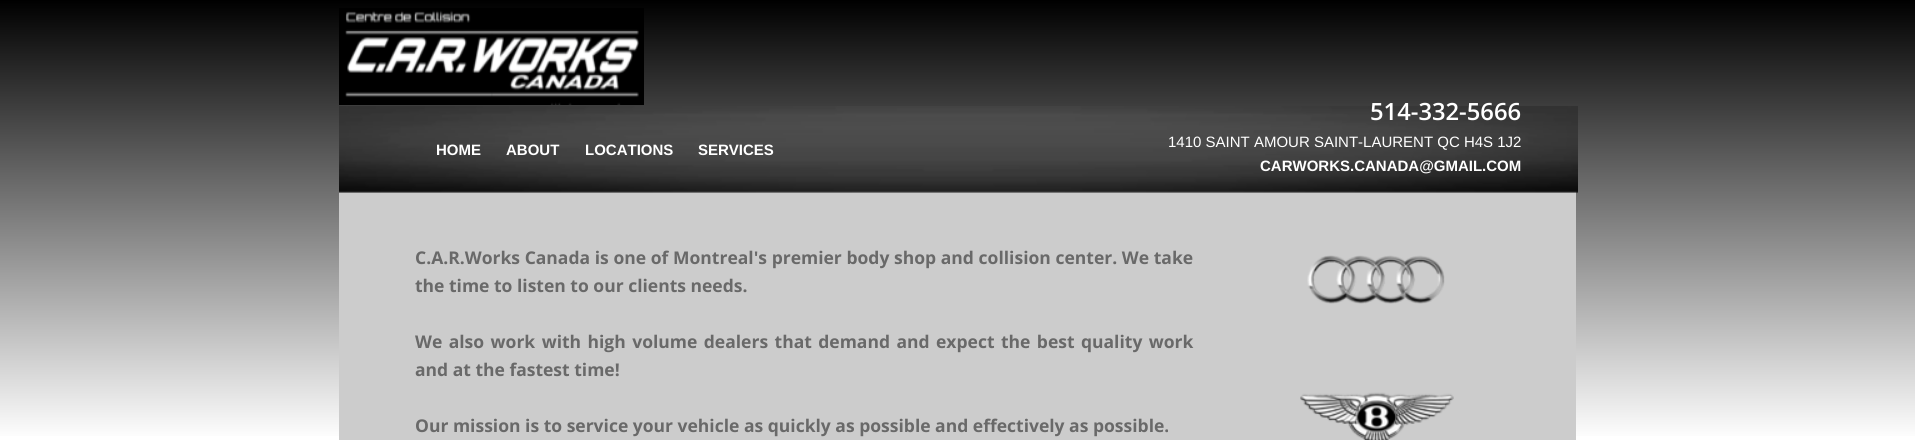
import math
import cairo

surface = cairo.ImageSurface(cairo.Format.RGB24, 1915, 440)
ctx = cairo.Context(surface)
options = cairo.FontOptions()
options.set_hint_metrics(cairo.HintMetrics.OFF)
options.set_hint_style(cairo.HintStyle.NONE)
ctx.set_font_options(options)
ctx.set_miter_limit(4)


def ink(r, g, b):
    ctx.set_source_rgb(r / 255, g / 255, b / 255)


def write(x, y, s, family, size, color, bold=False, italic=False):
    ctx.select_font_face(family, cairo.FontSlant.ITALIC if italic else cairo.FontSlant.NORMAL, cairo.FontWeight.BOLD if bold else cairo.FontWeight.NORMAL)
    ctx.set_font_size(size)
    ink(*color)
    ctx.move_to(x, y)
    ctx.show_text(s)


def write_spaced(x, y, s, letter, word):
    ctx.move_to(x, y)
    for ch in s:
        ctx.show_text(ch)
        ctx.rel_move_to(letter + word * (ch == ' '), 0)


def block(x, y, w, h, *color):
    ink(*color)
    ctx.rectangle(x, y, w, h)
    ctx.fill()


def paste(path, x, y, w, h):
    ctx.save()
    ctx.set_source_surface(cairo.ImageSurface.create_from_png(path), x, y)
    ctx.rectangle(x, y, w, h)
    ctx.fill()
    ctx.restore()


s1 = dict(family="Open Sans SemiBold", size=23.75, color=(255, 255, 255))
s2 = dict(family="Liberation Sans", size=15, color=(255, 255, 255))
s3 = dict(family="Liberation Sans", size=15, color=(255, 255, 255), bold=True)
s4 = dict(family="Open Sans", size=17.5, color=(105, 105, 105), bold=True)

ink(255, 255, 255)
ctx.paint()
gradient = cairo.LinearGradient(958, 0, 958, 440)
gradient.add_color_stop_rgba(0, 0, 0, 0, 1)
gradient.add_color_stop_rgba(1, 1, 1, 1, 1)
ctx.set_source(gradient)
ctx.rectangle(0, 0, 1915, 436)
ctx.fill()
block(339, 191, 1237, 249, 204, 204, 204)
paste("pic1.png", 339, 8, 305, 97)
paste("pic2.png", 339, 106, 1239, 87)
write(1370, 120, "514-332-5666", **s1)
write(1168, 147, "1410 SAINT AMOUR SAINT-LAURENT QC H4S 1J2", **s2)
write(1260, 171, "CARWORKS.CANADA@GMAIL.COM", **s3)
write(436, 155, "HOME", **s3)
write(506, 155, "ABOUT", **s3)
write(585, 155, "LOCATIONS", **s3)
write(698, 155, "SERVICES", **s3)
ctx.select_font_face("Open Sans", cairo.FontSlant.NORMAL, cairo.FontWeight.BOLD)
ctx.set_font_size(17.5)
ink(105, 105, 105)
write_spaced(415, 264, "C.A.R.Works Canada is one of Montreal's premier body shop and collision center. We take", 0, 0.1)
write(415, 292, "the time to listen to our clients needs.", **s4)
write_spaced(415, 348, "We also work with high volume dealers that demand and expect the best quality work", 0, 1.9)
write(415, 376, "and at the fastest time!", **s4)
write(415, 432, "Our mission is to service your vehicle as quickly as possible and effectively as possible.", **s4)
paste("pic3.png", 1307, 255, 138, 49)
paste("pic4.png", 1300, 392, 154, 48)
surface.write_to_png("screenshot.png")
